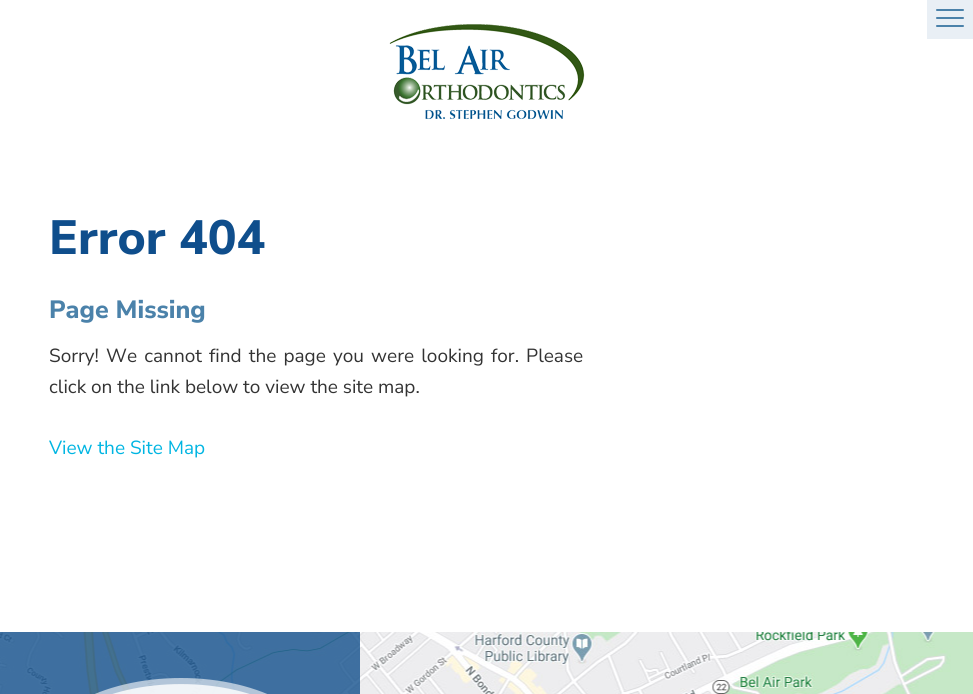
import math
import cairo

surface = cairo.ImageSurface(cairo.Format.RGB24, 973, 694)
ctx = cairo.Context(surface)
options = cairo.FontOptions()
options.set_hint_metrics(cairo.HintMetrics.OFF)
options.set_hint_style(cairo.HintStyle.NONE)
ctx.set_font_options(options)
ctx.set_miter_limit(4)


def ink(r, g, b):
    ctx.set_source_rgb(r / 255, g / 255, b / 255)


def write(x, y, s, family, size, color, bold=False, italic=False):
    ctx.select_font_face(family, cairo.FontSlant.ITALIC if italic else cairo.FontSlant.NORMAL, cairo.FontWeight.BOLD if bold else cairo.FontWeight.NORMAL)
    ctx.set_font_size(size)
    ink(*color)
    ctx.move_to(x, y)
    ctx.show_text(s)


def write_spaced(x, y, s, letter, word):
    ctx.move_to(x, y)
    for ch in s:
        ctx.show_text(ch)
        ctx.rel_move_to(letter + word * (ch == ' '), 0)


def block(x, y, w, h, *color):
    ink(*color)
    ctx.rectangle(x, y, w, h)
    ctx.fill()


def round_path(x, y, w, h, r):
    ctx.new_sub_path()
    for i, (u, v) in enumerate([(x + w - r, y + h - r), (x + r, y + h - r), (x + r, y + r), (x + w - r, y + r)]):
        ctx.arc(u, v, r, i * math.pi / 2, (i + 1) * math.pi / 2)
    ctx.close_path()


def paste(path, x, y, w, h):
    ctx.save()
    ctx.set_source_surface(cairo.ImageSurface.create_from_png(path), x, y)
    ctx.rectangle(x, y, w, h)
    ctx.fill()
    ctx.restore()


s1 = dict(family="Nunito Sans ExtraBold", size=48, color=(15, 78, 140))
s2 = dict(family="Nunito Sans ExtraBold", size=25, color=(75, 130, 170))
s3 = dict(family="Nunito Sans", size=19, color=(51, 51, 51))
s4 = dict(family="Nunito Sans", size=19, color=(0, 181, 226))

ink(255, 255, 255)
ctx.paint()
block(927, 0, 46, 39, 233, 239, 245)
ink(75, 130, 170)
round_path(936, 9, 28, 2, 1)
ctx.fill()
round_path(936, 17, 28, 2, 1)
ctx.fill()
round_path(936, 25, 28, 2, 1)
ctx.fill()
paste("pic1.png", 389, 24, 196, 96)
write(49, 254, "Error 404", **s1)
write(49, 318, "Page Missing", **s2)
ctx.select_font_face("Nunito Sans")
ctx.set_font_size(19)
ink(51, 51, 51)
write_spaced(49, 362, "Sorry! We cannot find the page you were looking for. Please", 0, 2.25)
write(49, 393, "click on the link below to view the site map.", **s3)
write(49, 454, "View the Site Map", **s4)
paste("pic2.png", 0, 632, 973, 62)
ctx.set_source_rgba(0.02, 0.275, 0.522, 0.75)
ctx.rectangle(0, 632, 360, 62)
ctx.fill()
paste("pic3.png", 95, 678, 172, 16)
surface.write_to_png("screenshot.png")
